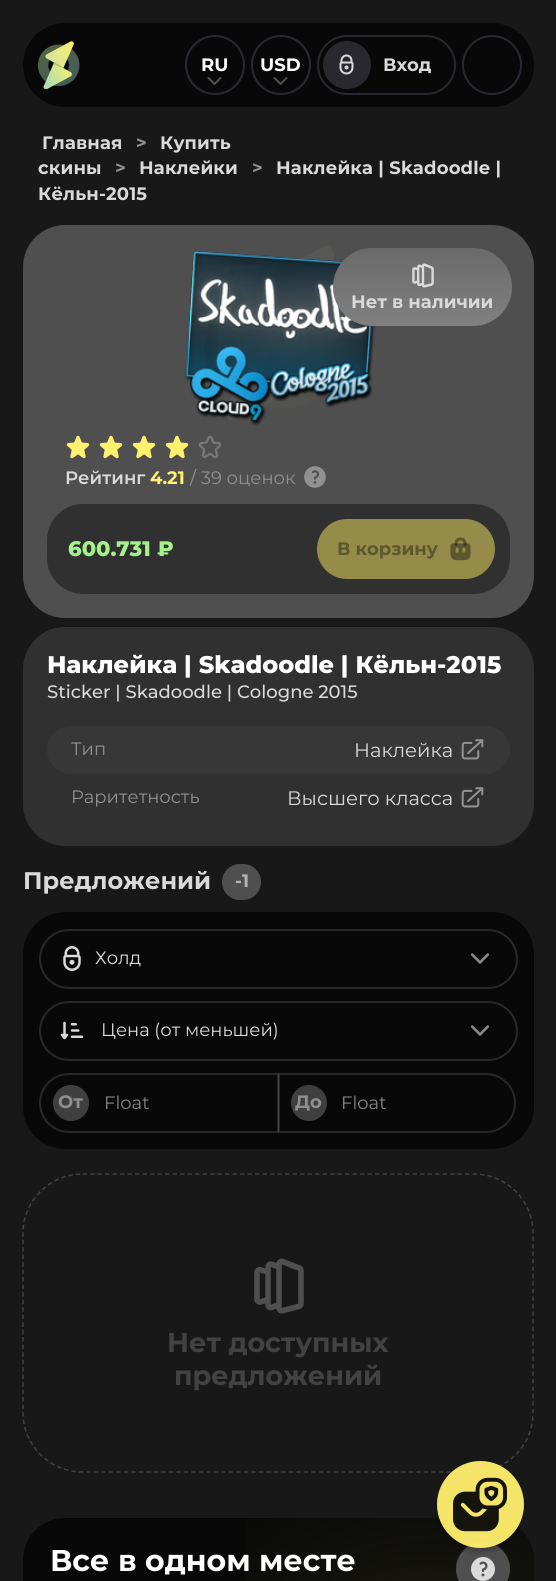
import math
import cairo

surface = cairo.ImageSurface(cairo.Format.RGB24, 556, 1581)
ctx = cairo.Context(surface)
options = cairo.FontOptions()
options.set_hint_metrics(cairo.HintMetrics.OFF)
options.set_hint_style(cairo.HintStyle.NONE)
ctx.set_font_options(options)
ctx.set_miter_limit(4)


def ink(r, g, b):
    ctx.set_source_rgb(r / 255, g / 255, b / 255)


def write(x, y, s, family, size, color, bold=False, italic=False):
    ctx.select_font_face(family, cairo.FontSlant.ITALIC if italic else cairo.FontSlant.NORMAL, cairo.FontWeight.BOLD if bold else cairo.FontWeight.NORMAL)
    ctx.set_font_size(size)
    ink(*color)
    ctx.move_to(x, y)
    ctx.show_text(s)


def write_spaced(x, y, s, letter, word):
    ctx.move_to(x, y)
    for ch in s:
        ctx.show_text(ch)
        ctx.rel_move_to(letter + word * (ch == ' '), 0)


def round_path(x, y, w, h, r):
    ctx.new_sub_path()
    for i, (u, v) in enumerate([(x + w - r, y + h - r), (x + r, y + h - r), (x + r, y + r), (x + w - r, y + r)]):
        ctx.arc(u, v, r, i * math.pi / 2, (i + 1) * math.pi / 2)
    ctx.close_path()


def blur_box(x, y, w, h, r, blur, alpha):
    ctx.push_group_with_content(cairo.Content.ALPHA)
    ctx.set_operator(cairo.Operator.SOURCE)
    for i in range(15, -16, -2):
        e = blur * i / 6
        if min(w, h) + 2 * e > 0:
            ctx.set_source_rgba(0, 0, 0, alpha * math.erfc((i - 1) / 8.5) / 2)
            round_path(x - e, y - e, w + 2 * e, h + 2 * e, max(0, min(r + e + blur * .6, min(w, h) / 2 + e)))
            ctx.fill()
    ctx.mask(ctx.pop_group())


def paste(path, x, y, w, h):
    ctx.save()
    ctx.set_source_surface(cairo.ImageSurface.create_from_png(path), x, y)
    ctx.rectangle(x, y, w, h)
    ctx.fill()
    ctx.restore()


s1 = dict(family="Montserrat", size=18, color=(255, 255, 255), bold=True)
s2 = dict(family="Montserrat", size=18, color=(218, 218, 218), bold=True)
s3 = dict(family="Montserrat SemiBold", size=18, color=(218, 218, 218))
s4 = dict(family="Montserrat", size=18, color=(255, 240, 109), bold=True)
s5 = dict(family="Montserrat", size=18, color=(144, 144, 144))
s6 = dict(family="Montserrat ExtraBold", size=21, color=(165, 241, 139))
s7 = dict(family="Montserrat", size=18, color=(92, 87, 46), bold=True)
s8 = dict(family="Montserrat ExtraBold", size=24, color=(255, 255, 255))
s9 = dict(family="Montserrat Medium", size=18, color=(218, 218, 218))
s10 = dict(family="Montserrat", size=19.5, color=(218, 218, 218))
s11 = dict(family="Montserrat", size=24, color=(218, 218, 218), bold=True)
s12 = dict(family="Montserrat", size=18, color=(181, 181, 181), bold=True)
s13 = dict(family="Montserrat", size=18, color=(218, 218, 218))
s14 = dict(family="Montserrat", size=18, color=(144, 144, 144), bold=True)
s15 = dict(family="Montserrat", size=18, color=(133, 133, 133))
s16 = dict(family="Montserrat", size=27, color=(66, 66, 66), bold=True)
s17 = dict(family="Montserrat", size=30, color=(255, 255, 255), bold=True)

ink(24, 24, 24)
ctx.paint()
ink(8, 8, 8)
round_path(23, 23, 511, 84, 42)
ctx.fill()
paste("pic1.png", 38, 41, 42, 48)
ctx.arc(215, 65, 29, 0, 2 * math.pi)
ink(41, 41, 49)
ctx.stroke()
write(201, 71, "RU", **s1)
paste("pic2.png", 207, 77, 15, 8)
ctx.arc(281, 65, 29, 0, 2 * math.pi)
ink(41, 41, 49)
ctx.stroke()
write(260, 71, "USD", **s1)
paste("pic2.png", 273, 77, 15, 8)
round_path(318, 36, 137, 58, 29)
ink(40, 40, 46)
ctx.stroke()
ctx.arc(347, 65, 24, 0, 2 * math.pi)
ctx.fill()
paste("pic3.png", 339, 54, 15, 21)
write(383, 71, "Вход", **s2)
ctx.new_path()
ctx.arc(492, 65, 29, 0, 2 * math.pi)
ink(41, 41, 49)
ctx.stroke()
ink(218, 218, 218)
write_spaced(42, 149, "Главная", 0.15, 0)
ink(144, 144, 144)
write_spaced(136, 149, ">", 0.15, 0)
ink(218, 218, 218)
write_spaced(160, 149, "Купить", 0.15, 0)
write_spaced(38, 174, "скины", 0.15, 0)
ink(144, 144, 144)
write_spaced(115, 174, ">", 0.15, 0)
ink(218, 218, 218)
write_spaced(139, 174, "Наклейки", 0.15, 0)
ink(144, 144, 144)
write_spaced(252, 174, ">", 0.15, 0)
ink(218, 218, 218)
write_spaced(276, 174, "Наклейка | Skadoodle |", 0.15, 0)
write_spaced(38, 200, "Кёльн-2015", 0.15, 0)
ink(79, 79, 79)
round_path(23, 225, 511, 393, 42)
ctx.fill()
paste("pic4.png", 225, 246, 110, 174)
paste("pic5.png", 185, 251, 191, 175)
gradient = cairo.LinearGradient(422, 248, 422, 326)
gradient.add_color_stop_rgba(0, 0.416, 0.416, 0.416, 1)
gradient.add_color_stop_rgba(1, 0.502, 0.502, 0.502, 1)
ctx.set_source(gradient)
round_path(333, 248, 179, 78, 39)
ctx.fill()
paste("pic6.png", 412, 263, 22, 25)
write(351, 308, "Нет в наличии", **s2)
paste("pic7.png", 66, 435, 24, 24)
paste("pic7.png", 99, 435, 24, 24)
paste("pic7.png", 132, 435, 24, 24)
paste("pic7.png", 165, 435, 24, 24)
paste("pic8.png", 198, 435, 24, 24)
write(65, 484, "Рейтинг", **s3)
write(150, 484, "4.21", **s4)
write(190, 484, "/ 39 оценок", **s5)
paste("pic9.png", 304, 466, 22, 22)
ink(48, 48, 48)
round_path(47, 504, 463, 90, 36)
ctx.fill()
write(68, 556, "600.731 ₽", **s6)
ink(148, 140, 72)
round_path(317, 519, 178, 60, 30)
ctx.fill()
write(337, 555, "В корзину", **s7)
paste("pic10.png", 450, 537, 21, 24)
ink(48, 48, 48)
round_path(23, 627, 511, 219, 42)
ctx.fill()
write(47, 673, "Наклейка | Skadoodle | Кёльн-2015", **s8)
write(47, 698, "Sticker | Skadoodle | Cologne 2015", **s9)
ink(55, 55, 55)
round_path(47, 726, 463, 48, 24)
ctx.fill()
write(71, 755, "Тип", **s5)
write(354, 757, "Наклейка", **s10)
paste("pic11.png", 461, 739, 23, 21)
write(71, 803, "Раритетность", **s5)
write(287, 805, "Высшего класса", **s10)
paste("pic12.png", 461, 787, 23, 21)
write(23, 889, "Предложений", **s11)
ink(79, 79, 79)
round_path(222, 864, 39, 36, 18)
ctx.fill()
write(235, 887, "-1", **s12)
ink(8, 8, 8)
round_path(23, 912, 511, 237, 42)
ctx.fill()
round_path(40, 930, 477, 58, 29)
ink(40, 40, 40)
ctx.stroke()
paste("pic13.png", 63, 946, 18, 25)
write(95, 964, "Холд", **s13)
paste("pic14.png", 470, 953, 20, 11)
round_path(40, 1002, 477, 58, 29)
ink(40, 40, 40)
ctx.stroke()
paste("pic15.png", 60, 1021, 24, 19)
write(101, 1036, "Цена (от меньшей)", **s13)
paste("pic14.png", 470, 1025, 20, 11)
ink(63, 63, 63)
ctx.arc(71, 1103, 18, 0, 2 * math.pi)
ctx.fill()
ctx.new_path()
ctx.move_to(69, 1074)
ctx.line_to(278, 1074)
ctx.line_to(278, 1132)
ctx.line_to(69, 1132)
ctx.curve_to(53, 1132, 40, 1119, 40, 1103)
ctx.curve_to(40, 1087, 53, 1074, 69, 1074)
ctx.close_path()
ink(40, 40, 40)
ctx.stroke()
write(58, 1108, "От", **s14)
write(104, 1109, "Float", **s15)
ink(63, 63, 63)
ctx.new_path()
ctx.arc(309, 1103, 18, 0, 2 * math.pi)
ctx.fill()
ctx.new_path()
ctx.move_to(279, 1074)
ctx.line_to(486, 1074)
ctx.curve_to(502, 1074, 515, 1087, 515, 1103)
ctx.curve_to(515, 1119, 502, 1132, 486, 1132)
ctx.line_to(279, 1132)
ctx.close_path()
ctx.set_source_rgba(0.659, 0.659, 0.659, 0.2)
ctx.stroke()
write(295, 1108, "До", **s14)
write(341, 1109, "Float", **s15)
ctx.new_path()
ctx.move_to(82.5, 1174)
ctx.line_to(474, 1174)
ctx.curve_to(506.5, 1174, 533, 1200.5, 533, 1233)
ctx.line_to(533, 1413)
ctx.curve_to(533, 1445.5, 506.5, 1472, 474, 1472)
ctx.line_to(82.5, 1472)
ctx.curve_to(50, 1472, 23, 1445.5, 23, 1413)
ctx.line_to(23, 1233)
ctx.curve_to(23, 1200.5, 50, 1174, 82.5, 1174)
ctx.close_path()
ink(66, 66, 66)
ctx.set_line_width(1.5)
ctx.set_dash([4.5, 3])
ctx.stroke()
paste("pic16.png", 254, 1258, 50, 56)
write(167, 1352, "Нет доступных", **s16)
write(174, 1385, "предложений", **s16)
ink(8, 8, 8)
round_path(23, 1518, 511, 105, 42)
ctx.fill()
paste("pic18.png", 245, 1518, 289, 63)
ink(79, 79, 79)
ctx.arc(483, 1569, 27, 0, 2 * math.pi)
ctx.fill()
paste("pic19.png", 471, 1557, 24, 24)
ctx.save()
ctx.set_fill_rule(cairo.FillRule.EVEN_ODD)
ctx.new_path()
ctx.move_to(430, 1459)
ctx.line_to(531, 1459)
ctx.line_to(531, 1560)
ctx.line_to(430, 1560)
ctx.close_path()
ctx.move_to(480.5, 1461)
ctx.curve_to(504.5, 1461, 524, 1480.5, 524, 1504.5)
ctx.curve_to(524, 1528.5, 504.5, 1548, 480.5, 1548)
ctx.curve_to(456.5, 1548, 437, 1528.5, 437, 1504.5)
ctx.curve_to(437, 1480.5, 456.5, 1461, 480.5, 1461)
ctx.close_path()
ctx.clip()
ink(0, 0, 0)
blur_box(437, 1466, 87, 87, 43.5, 2, 0.19)
ctx.restore()
ctx.set_source_rgba(1, 0.941, 0.427, 0.95)
ctx.arc(480.5, 1504.5, 43.5, 0, 2 * math.pi)
ctx.fill()
paste("pic17.png", 453, 1477, 54, 55)
write(50, 1571, "Все в одном месте", **s17)
surface.write_to_png("screenshot.png")
